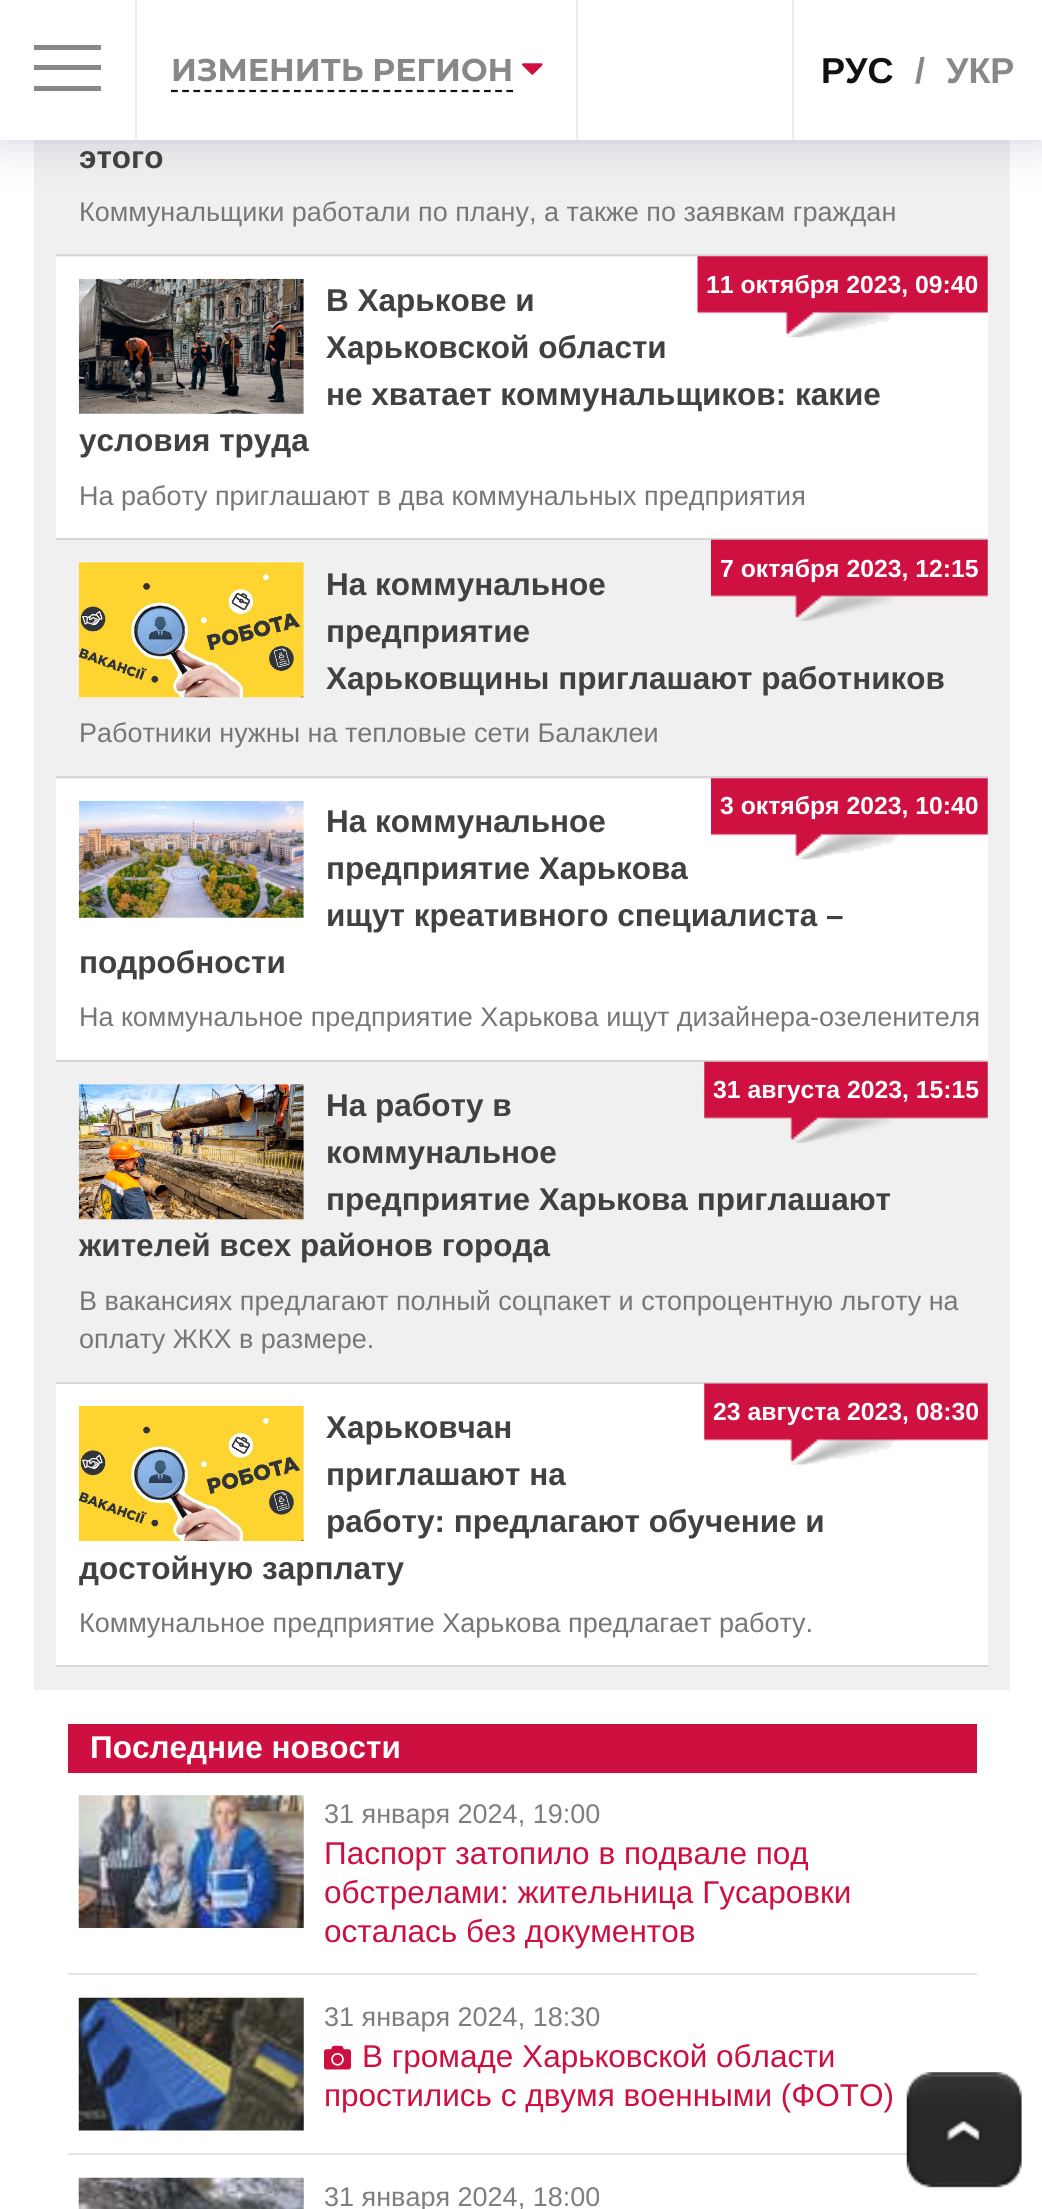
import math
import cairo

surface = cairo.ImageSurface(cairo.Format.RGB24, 1042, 2209)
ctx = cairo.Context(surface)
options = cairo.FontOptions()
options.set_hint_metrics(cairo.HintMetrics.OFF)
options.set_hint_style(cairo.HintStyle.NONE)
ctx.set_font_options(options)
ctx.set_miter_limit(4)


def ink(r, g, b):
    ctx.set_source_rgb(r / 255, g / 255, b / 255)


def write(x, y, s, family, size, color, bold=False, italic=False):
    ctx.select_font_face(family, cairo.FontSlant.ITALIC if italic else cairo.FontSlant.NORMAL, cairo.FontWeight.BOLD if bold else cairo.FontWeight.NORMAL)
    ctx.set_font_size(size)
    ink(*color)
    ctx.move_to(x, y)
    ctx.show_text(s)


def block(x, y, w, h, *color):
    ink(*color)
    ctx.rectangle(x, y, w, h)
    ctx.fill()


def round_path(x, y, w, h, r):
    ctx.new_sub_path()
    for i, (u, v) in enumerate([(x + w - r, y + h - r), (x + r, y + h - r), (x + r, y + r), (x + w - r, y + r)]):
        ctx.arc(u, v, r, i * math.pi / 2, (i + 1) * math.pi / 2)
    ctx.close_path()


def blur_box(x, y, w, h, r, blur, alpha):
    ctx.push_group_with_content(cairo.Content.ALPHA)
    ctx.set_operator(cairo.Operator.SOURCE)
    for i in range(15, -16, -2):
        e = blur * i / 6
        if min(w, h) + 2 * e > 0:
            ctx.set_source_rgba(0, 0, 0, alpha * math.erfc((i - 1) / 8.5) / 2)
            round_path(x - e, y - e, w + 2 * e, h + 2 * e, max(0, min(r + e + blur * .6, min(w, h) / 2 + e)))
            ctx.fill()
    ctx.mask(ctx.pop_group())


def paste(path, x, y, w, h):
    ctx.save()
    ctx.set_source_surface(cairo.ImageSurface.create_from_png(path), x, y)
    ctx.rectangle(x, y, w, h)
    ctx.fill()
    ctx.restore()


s1 = dict(family="Montserrat", size=31.5, color=(136, 136, 136), bold=True)
s2 = dict(family="Liberation Sans", size=36, color=(17, 17, 17), bold=True)
s3 = dict(family="Liberation Sans", size=36, color=(136, 136, 136), bold=True)
s4 = dict(family="Liberation Sans", size=31.5, color=(66, 65, 65), bold=True)
s5 = dict(family="Liberation Sans", size=27, color=(119, 119, 119))
s6 = dict(family="Liberation Sans", size=24.75, color=(255, 255, 255), bold=True)
s7 = dict(family="Liberation Sans", size=31.5, color=(255, 255, 255), bold=True)
s8 = dict(family="Liberation Sans", size=27, color=(126, 126, 126))
s9 = dict(family="Liberation Sans", size=31.5, color=(206, 16, 65))

ink(255, 255, 255)
ctx.paint()
block(34, 140, 976, 1550, 240, 240, 240)
ink(62, 83, 117)
blur_box(0, 0, 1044, 140, 0, 23.5, 0.25)
block(0, 0, 1042, 140, 255, 255, 255)
block(34, 65, 67, 5, 136, 136, 136)
block(34, 45, 67, 5, 136, 136, 136)
block(34, 86, 67, 5, 136, 136, 136)
block(576, 0, 2, 140, 238, 238, 238)
block(135, 0, 2, 140, 238, 238, 238)
ctx.new_path()
ctx.move_to(171, 91)
ctx.line_to(513, 91)
ink(17, 17, 17)
ctx.set_line_width(2.2)
ctx.set_dash([6.75, 4.43])
ctx.stroke()
write(171, 81, "ИЗМЕНИТЬ РЕГИОН", **s1)
paste("pic1.png", 522, 63, 21, 12)
block(792, 0, 2, 140, 238, 238, 238)
write(821, 83, "РУС", **s2)
write(915, 83, "/", **s3)
write(946, 83, "УКР", **s3)
block(56, 254, 932, 2, 214, 214, 214)
write(79, 168, "этого", **s4)
write(79, 221, "Коммунальщики работали по плану, а также по заявкам граждан", **s5)
block(56, 257, 932, 281, 255, 255, 255)
block(56, 538, 932, 2, 214, 214, 214)
paste("pic2.png", 78, 278, 226, 136)
paste("pic3.png", 697, 256, 291, 82)
write(706, 293, "11 октября 2023, 09:40", **s6)
write(326, 311, "В Харькове и", **s4)
write(326, 358, "Харьковской области", **s4)
write(326, 405, "не хватает коммунальщиков: какие", **s4)
write(79, 451, "условия труда", **s4)
write(79, 505, "На работу приглашают в два коммунальных предприятия", **s5)
block(56, 776, 932, 2, 214, 214, 214)
paste("pic4.png", 78, 562, 226, 136)
paste("pic5.png", 711, 539, 277, 82)
write(720, 577, "7 октября 2023, 12:15", **s6)
write(326, 595, "На коммунальное", **s4)
write(326, 642, "предприятие", **s4)
write(326, 689, "Харьковщины приглашают работников", **s4)
write(79, 742, "Работники нужны на тепловые сети Балаклеи", **s5)
block(56, 779, 932, 281, 255, 255, 255)
block(56, 1060, 932, 2, 214, 214, 214)
paste("pic6.png", 78, 800, 226, 118)
paste("pic7.png", 711, 778, 277, 82)
write(720, 814, "3 октября 2023, 10:40", **s6)
write(326, 832, "На коммунальное", **s4)
write(326, 879, "предприятие Харькова", **s4)
write(326, 926, "ищут креативного специалиста –", **s4)
write(79, 973, "подробности", **s4)
write(79, 1026, "На коммунальное предприятие Харькова ищут дизайнера-озеленителя", **s5)
block(56, 1382, 932, 2, 214, 214, 214)
paste("pic8.png", 78, 1084, 226, 136)
paste("pic9.png", 704, 1061, 284, 82)
write(713, 1098, "31 августа 2023, 15:15", **s6)
write(326, 1116, "На работу в", **s4)
write(326, 1163, "коммунальное", **s4)
write(326, 1210, "предприятие Харькова приглашают", **s4)
write(79, 1256, "жителей всех районов города", **s4)
write(79, 1310, "В вакансиях предлагают полный соцпакет и стопроцентную льготу на", **s5)
write(79, 1348, "оплату ЖКХ в размере.", **s5)
block(56, 1384, 932, 281, 255, 255, 255)
block(56, 1665, 932, 2, 214, 214, 214)
paste("pic10.png", 78, 1406, 226, 135)
paste("pic11.png", 704, 1383, 284, 82)
write(713, 1420, "23 августа 2023, 08:30", **s6)
write(326, 1438, "Харьковчан", **s4)
write(326, 1485, "приглашают на", **s4)
write(326, 1532, "работу: предлагают обучение и", **s4)
write(79, 1579, "достойную зарплату", **s4)
write(79, 1632, "Коммунальное предприятие Харькова предлагает работу.", **s5)
block(68, 1724, 909, 49, 206, 16, 65)
write(90, 1758, "Последние новости", **s7)
block(68, 1973, 909, 2, 229, 229, 229)
paste("pic12.png", 78, 1795, 226, 133)
write(324, 1823, "31 января 2024, 19:00", **s8)
write(324, 1864, "Паспорт затопило в подвале под", **s9)
write(324, 1903, "обстрелами: жительница Гусаровки", **s9)
write(324, 1942, "осталась без документов", **s9)
block(68, 2153, 909, 2, 229, 229, 229)
paste("pic13.png", 78, 1997, 226, 134)
write(324, 2026, "31 января 2024, 18:30", **s8)
paste("pic14.png", 324, 2045, 27, 25)
write(362, 2067, "В громаде Харьковской области", **s9)
write(324, 2106, "простились с двумя военными (ФОТО)", **s9)
paste("pic15.png", 78, 2177, 226, 32)
write(324, 2206, "31 января 2024, 18:00", **s8)
paste("pic16.png", 906, 2072, 116, 116)
surface.write_to_png("screenshot.png")
